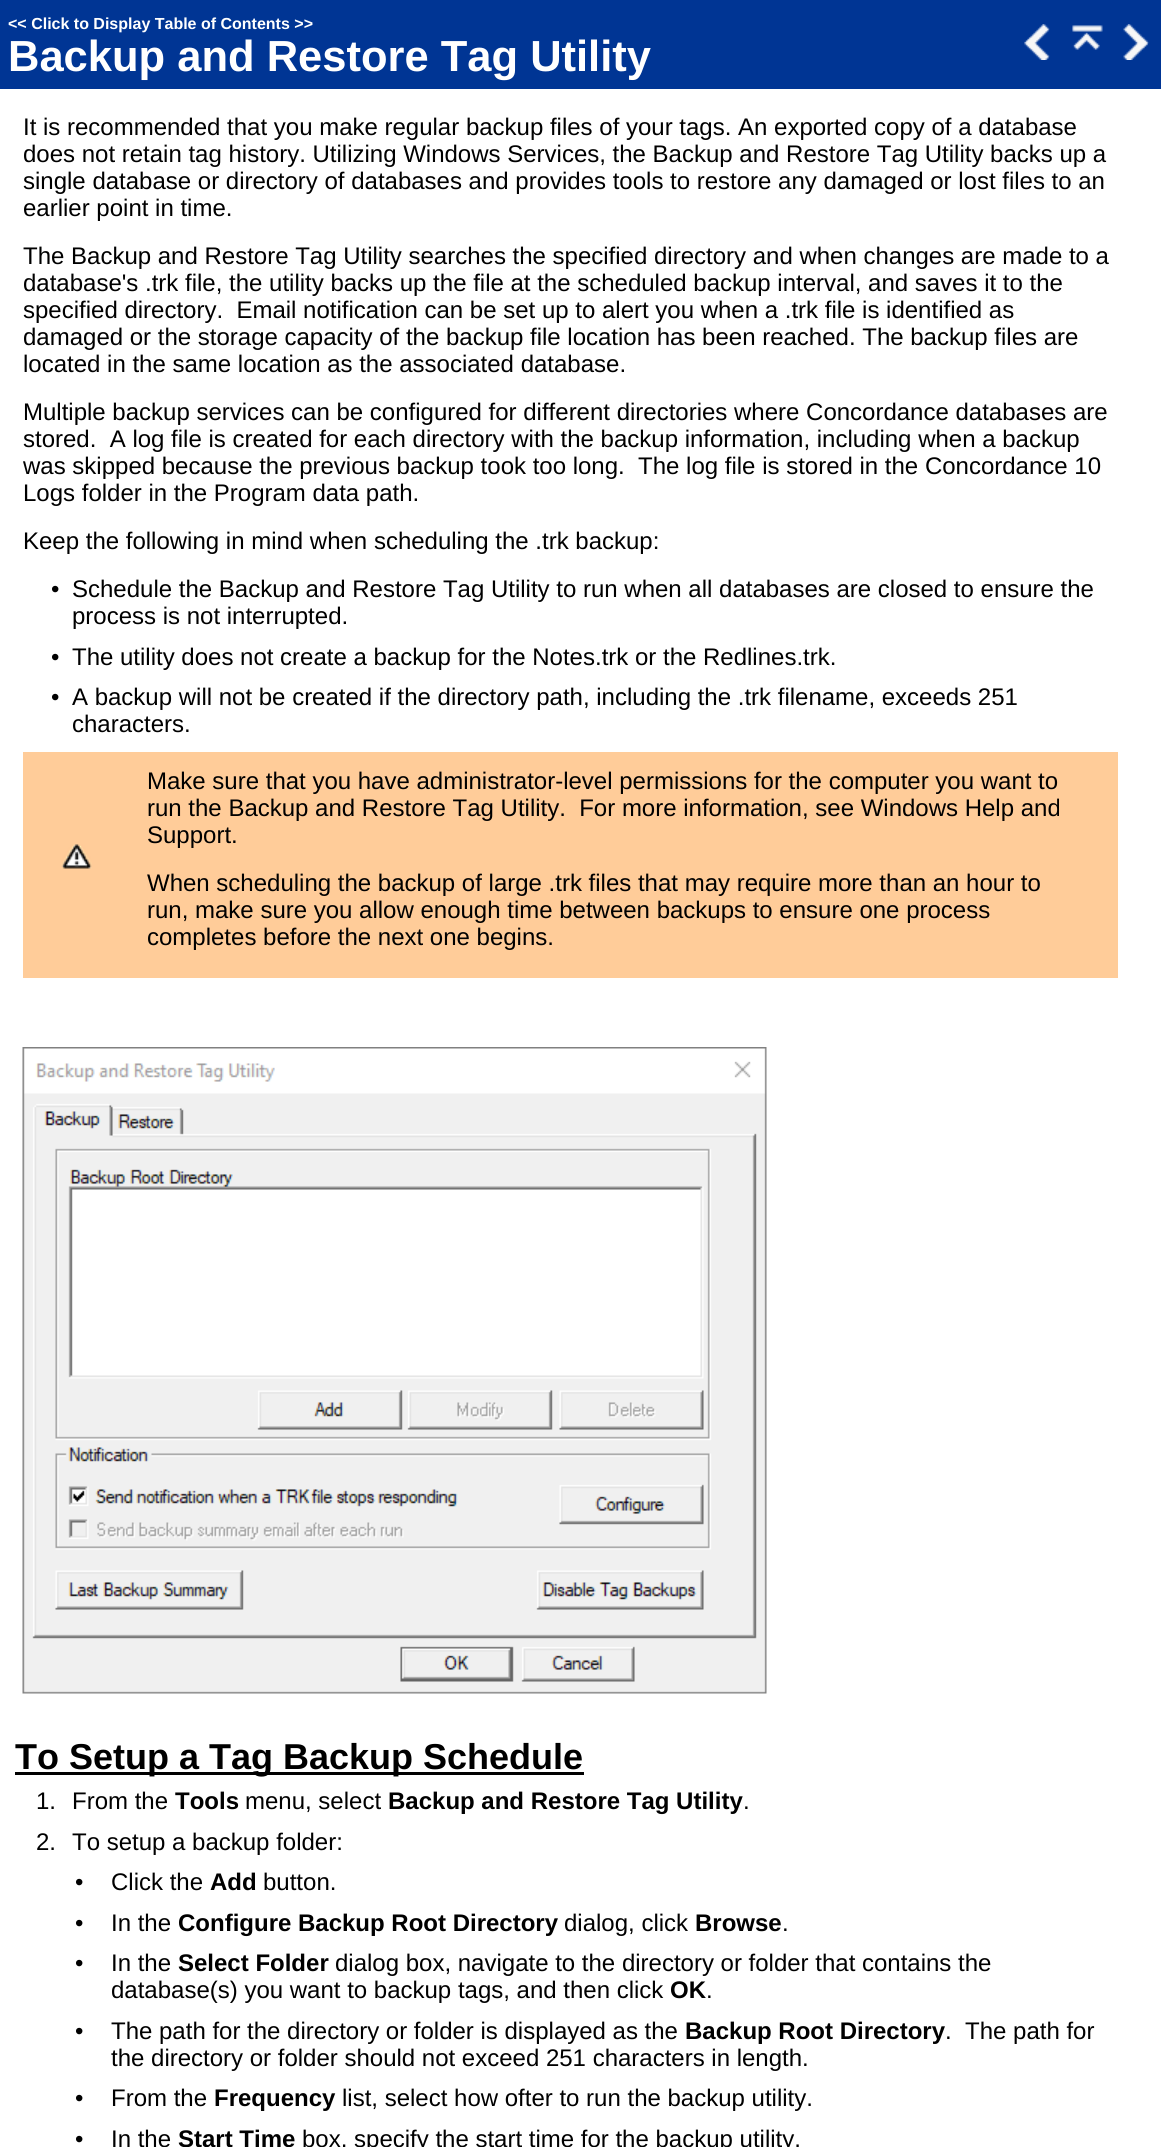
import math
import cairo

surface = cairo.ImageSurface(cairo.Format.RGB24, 1161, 2147)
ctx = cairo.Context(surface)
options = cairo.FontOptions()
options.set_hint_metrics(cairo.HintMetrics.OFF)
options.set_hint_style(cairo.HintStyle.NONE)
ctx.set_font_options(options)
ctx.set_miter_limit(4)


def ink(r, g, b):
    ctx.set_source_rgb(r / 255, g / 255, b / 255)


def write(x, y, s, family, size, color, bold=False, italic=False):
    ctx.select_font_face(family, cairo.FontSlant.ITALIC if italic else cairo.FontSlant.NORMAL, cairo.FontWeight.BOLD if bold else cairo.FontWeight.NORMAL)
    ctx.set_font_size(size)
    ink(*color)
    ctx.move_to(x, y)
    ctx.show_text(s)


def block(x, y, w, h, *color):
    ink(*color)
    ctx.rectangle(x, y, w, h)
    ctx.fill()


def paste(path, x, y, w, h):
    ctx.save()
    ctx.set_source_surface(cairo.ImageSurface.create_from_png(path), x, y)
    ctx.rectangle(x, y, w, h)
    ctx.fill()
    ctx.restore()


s1 = dict(family="Liberation Sans", size=16, color=(255, 255, 255), bold=True)
s2 = dict(family="Liberation Sans", size=43.5, color=(255, 255, 255), bold=True)
s3 = dict(family="Liberation Sans", size=24, color=(0, 0, 0))
s4 = dict(family="Liberation Sans", size=36, color=(0, 0, 0), bold=True)
s5 = dict(family="Liberation Sans", size=24, color=(0, 0, 0), bold=True)

ink(255, 255, 255)
ctx.paint()
block(0, 0, 1161, 89, 0, 53, 148)
write(8, 29, "<< Click to Display Table of Contents >>", **s1)
write(8, 71, "Backup and Restore Tag Utility", **s2)
paste("pic1.png", 1024, 24, 26, 36)
paste("pic2.png", 1072, 25, 31, 25)
paste("pic3.png", 1123, 24, 26, 36)
write(23, 135, "It is recommended that you make regular backup files of your tags. An exported copy of a database", **s3)
write(23, 162, "does not retain tag history. Utilizing Windows Services, the Backup and Restore Tag Utility backs up a", **s3)
write(23, 189, "single database or directory of databases and provides tools to restore any damaged or lost files to an", **s3)
write(23, 216, "earlier point in time.", **s3)
write(23, 264, "The Backup and Restore Tag Utility searches the specified directory and when changes are made to a", **s3)
write(23, 291, "database's .trk file, the utility backs up the file at the scheduled backup interval, and saves it to the", **s3)
write(23, 318, "specified directory.  Email notification can be set up to alert you when a .trk file is identified as", **s3)
write(23, 345, "damaged or the storage capacity of the backup file location has been reached. The backup files are", **s3)
write(23, 372, "located in the same location as the associated database.", **s3)
write(23, 420, "Multiple backup services can be configured for different directories where Concordance databases are", **s3)
write(23, 447, "stored.  A log file is created for each directory with the backup information, including when a backup", **s3)
write(23, 474, "was skipped because the previous backup took too long.  The log file is stored in the Concordance 10", **s3)
write(23, 501, "Logs folder in the Program data path.", **s3)
write(23, 549, "Keep the following in mind when scheduling the .trk backup:", **s3)
write(51, 597, "•", **s3)
write(72, 597, "Schedule the Backup and Restore Tag Utility to run when all databases are closed to ensure the", **s3)
write(72, 624, "process is not interrupted.", **s3)
write(51, 665, "•", **s3)
write(72, 665, "The utility does not create a backup for the Notes.trk or the Redlines.trk.", **s3)
write(51, 705, "•", **s3)
write(72, 705, "A backup will not be created if the directory path, including the .trk filename, exceeds 251", **s3)
write(72, 732, "characters.", **s3)
block(23, 752, 1095, 226, 255, 204, 153)
paste("pic4.png", 61, 844, 31, 25)
write(147, 789, "Make sure that you have administrator-level permissions for the computer you want to", **s3)
write(147, 816, "run the Backup and Restore Tag Utility.  For more information, see Windows Help and", **s3)
write(147, 843, "Support.", **s3)
write(147, 891, "When scheduling the backup of large .trk files that may require more than an hour to", **s3)
write(147, 918, "run, make sure you allow enough time between backups to ensure one process", **s3)
write(147, 945, "completes before the next one begins.", **s3)
paste("pic5.png", 22, 1047, 745, 647)
block(15, 1772, 569, 3, 0, 0, 0)
write(15, 1769, "To Setup a Tag Backup Schedule", **s4)
write(36, 1809, "1.", **s3)
write(72, 1809, "From the", **s3)
write(175, 1809, "Tools", **s5)
write(245, 1809, "menu, select", **s3)
write(388, 1809, "Backup and Restore Tag Utility", **s5)
write(743, 1809, ".", **s3)
write(36, 1850, "2.", **s3)
write(72, 1850, "To setup a backup folder:", **s3)
write(75, 1890, "•", **s3)
write(111, 1890, "Click the", **s3)
write(210, 1890, "Add", **s5)
write(263, 1890, "button.", **s3)
write(75, 1931, "•", **s3)
write(111, 1931, "In the", **s3)
write(178, 1931, "Configure Backup Root Directory", **s5)
write(564, 1931, "dialog, click", **s3)
write(695, 1931, "Browse", **s5)
write(782, 1931, ".", **s3)
write(75, 1971, "•", **s3)
write(111, 1971, "In the", **s3)
write(178, 1971, "Select Folder", **s5)
write(335, 1971, "dialog box, navigate to the directory or folder that contains the", **s3)
write(111, 1998, "database(s) you want to backup tags, and then click", **s3)
write(670, 1998, "OK", **s5)
write(706, 1998, ".", **s3)
write(75, 2039, "•", **s3)
write(111, 2039, "The path for the directory or folder is displayed as the", **s3)
write(685, 2039, "Backup Root Directory", **s5)
write(945, 2039, ".  The path for", **s3)
write(111, 2066, "the directory or folder should not exceed 251 characters in length.", **s3)
write(75, 2106, "•", **s3)
write(111, 2106, "From the", **s3)
write(214, 2106, "Frequency", **s5)
write(342, 2106, "list, select how ofter to run the backup utility.", **s3)
write(75, 2147, "•", **s3)
write(111, 2147, "In the", **s3)
write(178, 2147, "Start Time", **s5)
write(302, 2147, "box, specify the start time for the backup utility.", **s3)
surface.write_to_png("screenshot.png")
